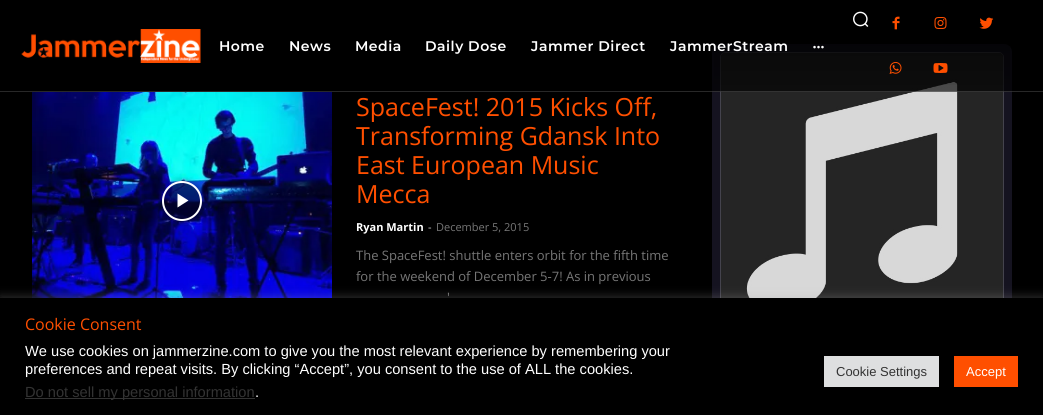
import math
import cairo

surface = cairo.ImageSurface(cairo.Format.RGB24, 1043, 415)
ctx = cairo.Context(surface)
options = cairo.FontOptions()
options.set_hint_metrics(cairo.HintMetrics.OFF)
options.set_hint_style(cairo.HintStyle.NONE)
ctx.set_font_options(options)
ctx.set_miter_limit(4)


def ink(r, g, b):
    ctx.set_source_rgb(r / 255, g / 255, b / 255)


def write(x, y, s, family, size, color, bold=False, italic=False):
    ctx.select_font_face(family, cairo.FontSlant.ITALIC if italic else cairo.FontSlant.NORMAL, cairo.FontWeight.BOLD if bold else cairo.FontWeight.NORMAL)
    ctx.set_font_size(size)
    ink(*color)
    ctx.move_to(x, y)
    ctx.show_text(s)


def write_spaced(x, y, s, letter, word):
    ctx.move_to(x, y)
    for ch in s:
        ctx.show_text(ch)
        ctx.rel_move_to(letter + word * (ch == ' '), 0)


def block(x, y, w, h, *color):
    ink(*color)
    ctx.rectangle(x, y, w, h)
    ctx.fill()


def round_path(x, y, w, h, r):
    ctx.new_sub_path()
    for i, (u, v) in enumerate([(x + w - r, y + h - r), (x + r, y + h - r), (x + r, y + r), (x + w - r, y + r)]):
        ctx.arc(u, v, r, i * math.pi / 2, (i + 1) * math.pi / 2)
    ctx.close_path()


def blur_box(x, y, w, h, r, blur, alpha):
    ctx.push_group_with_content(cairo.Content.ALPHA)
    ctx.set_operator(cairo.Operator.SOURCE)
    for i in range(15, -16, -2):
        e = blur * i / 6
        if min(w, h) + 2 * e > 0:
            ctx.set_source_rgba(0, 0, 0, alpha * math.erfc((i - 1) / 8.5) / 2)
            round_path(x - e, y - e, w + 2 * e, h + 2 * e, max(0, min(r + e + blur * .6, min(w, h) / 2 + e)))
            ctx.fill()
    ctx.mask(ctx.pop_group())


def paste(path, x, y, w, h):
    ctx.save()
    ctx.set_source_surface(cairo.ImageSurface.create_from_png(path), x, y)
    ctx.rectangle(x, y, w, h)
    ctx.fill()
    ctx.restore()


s1 = dict(family="Open Sans", size=25, color=(255, 79, 0))
s2 = dict(family="Open Sans", size=11, color=(255, 255, 255), bold=True)
s3 = dict(family="Open Sans", size=11, color=(204, 204, 204))
s4 = dict(family="Open Sans", size=11, color=(118, 118, 118))
s5 = dict(family="Open Sans", size=13, color=(118, 118, 118))
s6 = dict(family="Open Sans", size=16, color=(255, 79, 0))
s7 = dict(family="Liberation Sans", size=14.65, color=(255, 255, 255))
s8 = dict(family="Liberation Sans", size=14.65, color=(51, 51, 51))
s9 = dict(family="Liberation Sans", size=13, color=(51, 51, 51))
s10 = dict(family="Liberation Sans", size=13, color=(255, 255, 255))

ink(0, 0, 0)
ctx.paint()
paste("pic1.png", 21, 29, 180, 34)
ctx.select_font_face("Montserrat SemiBold")
ctx.set_font_size(14)
ink(255, 255, 255)
write_spaced(219, 51, "Home", 0.5, 0)
write_spaced(289, 51, "News", 0.5, 0)
write_spaced(355, 51, "Media", 0.5, 0)
write_spaced(425, 51, "Daily Dose", 0.5, 0)
write_spaced(531, 51, "Jammer Direct", 0.5, 0)
paste("pic10.png", 712, 44, 300, 254)
ctx.set_source_rgba(0, 0, 0, 0.66)
ctx.rectangle(712, 44, 300, 48)
ctx.fill()
gradient = cairo.LinearGradient(522, 0, 522, 92)
gradient.add_color_stop_rgba(0, 0, 0, 0, 0.5)
gradient.add_color_stop_rgba(1, 0, 0, 0, 0)
ctx.set_source(gradient)
ctx.rectangle(714, 44, 296, 41)
ctx.fill()
ink(255, 255, 255)
write_spaced(670, 51, "JammerStream", 0.5, 0)
paste("pic2.png", 813, 45, 11, 4)
paste("pic3.png", 853, 11, 16, 16)
paste("pic4.png", 892, 16, 8, 14)
paste("pic5.png", 934, 17, 13, 12)
paste("pic6.png", 979, 17, 15, 12)
paste("pic7.png", 889, 62, 13, 12)
paste("pic8.png", 933, 63, 15, 10)
ctx.set_source_rgba(1, 1, 1, 0.16)
ctx.rectangle(0, 91, 1043, 1)
ctx.fill()
paste("pic9.png", 32, 92, 300, 206)
ctx.save()
ctx.set_fill_rule(cairo.FillRule.EVEN_ODD)
ctx.new_path()
ctx.move_to(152, 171)
ctx.line_to(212, 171)
ctx.line_to(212, 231)
ctx.line_to(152, 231)
ctx.close_path()
ctx.move_to(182, 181)
ctx.curve_to(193, 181, 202, 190, 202, 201)
ctx.curve_to(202, 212, 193, 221, 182, 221)
ctx.curve_to(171, 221, 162, 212, 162, 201)
ctx.curve_to(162, 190, 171, 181, 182, 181)
ctx.close_path()
ctx.clip()
ink(0, 0, 0)
blur_box(162, 181, 40, 40, 20, 3, 0.4)
ctx.restore()
ctx.set_source_rgba(0, 0, 0, 0.48)
ctx.arc(182, 201, 19, 0, 2 * math.pi)
ctx.fill_preserve()
ink(255, 255, 255)
ctx.stroke()
ctx.new_path()
ctx.move_to(177.5, 193.5)
ctx.line_to(177.5, 207.5)
ctx.line_to(188.5, 200.5)
ctx.close_path()
ctx.fill()
write(356, 116, "SpaceFest! 2015 Kicks Off,", **s1)
write(356, 145, "Transforming Gdansk Into", **s1)
write(356, 174, "East European Music", **s1)
write(356, 203, "Mecca", **s1)
write(356, 231, "Ryan Martin", **s2)
write(428, 231, "-", **s3)
write(436, 231, "December 5, 2015", **s4)
write(356, 260, "The SpaceFest! shuttle enters orbit for the fifth time", **s5)
write(356, 281, "for the weekend of December 5-7! As in previous", **s5)
write(447, 302, "'", **s5)
ink(172, 171, 171)
blur_box(0, 297, 1043, 117, 0, 5, 0.3)
block(0, 298, 1043, 117, 0, 0, 0)
write(25, 330, "Cookie Consent", **s6)
write(25, 356, "We use cookies on jammerzine.com to give you the most relevant experience by remembering your", **s7)
write(25, 374, "preferences and repeat visits. By clicking “Accept”, you consent to the use of ALL the cookies.", **s7)
block(25, 398, 230, 1, 51, 51, 51)
write(25, 397, "Do not sell my personal information", **s8)
write(255, 397, ".", **s7)
block(824, 356, 115, 31, 222, 223, 224)
write(836, 376, "Cookie Settings", **s9)
block(954, 356, 64, 31, 255, 79, 0)
write(966, 376, "Accept", **s10)
surface.write_to_png("screenshot.png")
